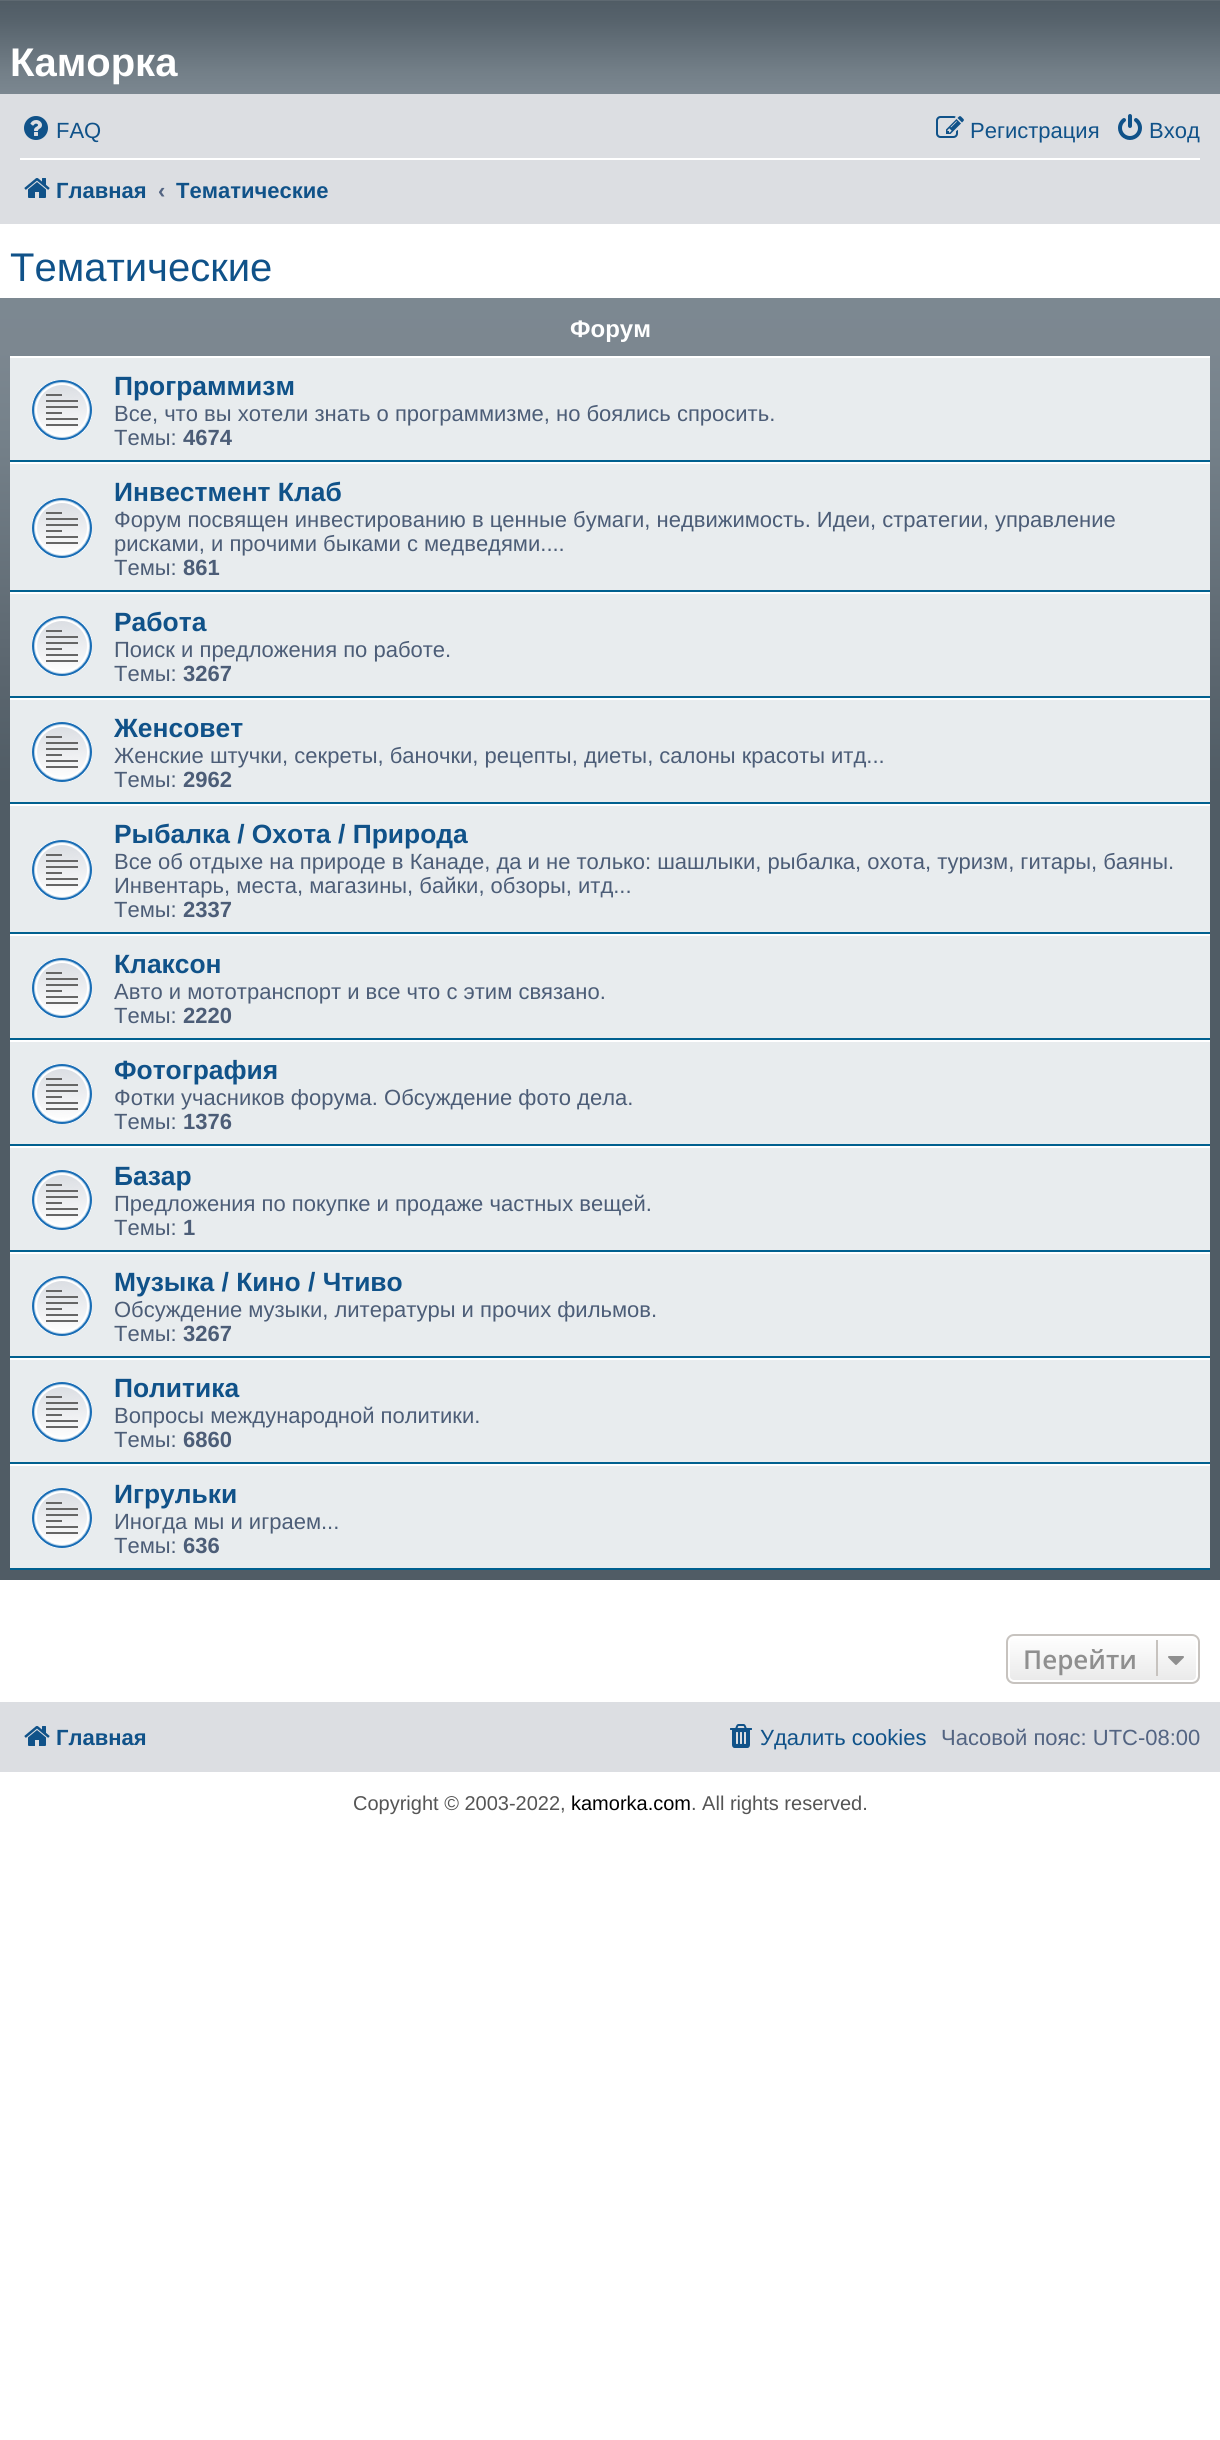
import math
import cairo

surface = cairo.ImageSurface(cairo.Format.RGB24, 1220, 2440)
ctx = cairo.Context(surface)
options = cairo.FontOptions()
options.set_hint_metrics(cairo.HintMetrics.OFF)
options.set_hint_style(cairo.HintStyle.NONE)
ctx.set_font_options(options)
ctx.set_miter_limit(4)


def ink(r, g, b):
    ctx.set_source_rgb(r / 255, g / 255, b / 255)


def write(x, y, s, family, size, color, bold=False, italic=False):
    ctx.select_font_face(family, cairo.FontSlant.ITALIC if italic else cairo.FontSlant.NORMAL, cairo.FontWeight.BOLD if bold else cairo.FontWeight.NORMAL)
    ctx.set_font_size(size)
    ink(*color)
    ctx.move_to(x, y)
    ctx.show_text(s)


def block(x, y, w, h, *color):
    ink(*color)
    ctx.rectangle(x, y, w, h)
    ctx.fill()


def round_path(x, y, w, h, r):
    ctx.new_sub_path()
    for i, (u, v) in enumerate([(x + w - r, y + h - r), (x + r, y + h - r), (x + r, y + r), (x + w - r, y + r)]):
        ctx.arc(u, v, r, i * math.pi / 2, (i + 1) * math.pi / 2)
    ctx.close_path()


def paste(path, x, y, w, h):
    ctx.save()
    ctx.set_source_surface(cairo.ImageSurface.create_from_png(path), x, y)
    ctx.rectangle(x, y, w, h)
    ctx.fill()
    ctx.restore()


s1 = dict(family="Liberation Sans", size=40, color=(255, 255, 255), bold=True)
s2 = dict(family="Liberation Sans", size=22, color=(16, 82, 137))
s3 = dict(family="Liberation Sans", size=22, color=(16, 82, 137), bold=True)
s4 = dict(family="Liberation Sans", size=22, color=(83, 100, 130), bold=True)
s5 = dict(family="Liberation Sans", size=40, color=(16, 82, 137))
s6 = dict(family="Liberation Sans", size=24, color=(255, 255, 255), bold=True)
s7 = dict(family="Liberation Sans", size=26.4, color=(16, 82, 137), bold=True)
s8 = dict(family="Liberation Sans", size=22, color=(76, 93, 119))
s9 = dict(family="Liberation Sans", size=22, color=(76, 93, 119), bold=True)
s10 = dict(family="Open Sans SemiBold", size=26, color=(143, 143, 143))
s11 = dict(family="Liberation Sans", size=22, color=(83, 100, 130))
s12 = dict(family="Liberation Sans", size=20, color=(85, 85, 85))
s13 = dict(family="Liberation Sans", size=20, color=(0, 0, 0))

ink(255, 255, 255)
ctx.paint()
gradient = cairo.LinearGradient(610, 0, 610, 96)
gradient.add_color_stop_rgba(0, 0.431, 0.467, 0.498, 1)
gradient.add_color_stop_rgba(0.01, 0.314, 0.361, 0.396, 1)
gradient.add_color_stop_rgba(0.2, 0.337, 0.384, 0.42, 1)
gradient.add_color_stop_rgba(0.75, 0.451, 0.498, 0.533, 1)
gradient.add_color_stop_rgba(1, 0.486, 0.533, 0.569, 1)
ctx.set_source(gradient)
ctx.rectangle(0, 0, 1220, 94)
ctx.fill()
write(10, 76, "Каморка", **s1)
block(0, 94, 1220, 130, 220, 222, 226)
paste("pic1.png", 24, 116, 24, 24)
write(56, 138, "FAQ", **s2)
paste("pic2.png", 936, 116, 28, 22)
write(970, 138, "Регистрация", **s2)
paste("pic3.png", 1118, 114, 24, 26)
write(1149, 138, "Вход", **s2)
block(20, 158, 1180, 2, 255, 255, 255)
paste("pic4.png", 24, 178, 26, 20)
write(56, 198, "Главная", **s3)
write(158, 198, "‹", **s4)
write(176, 198, "Тематические", **s3)
write(10, 281, "Тематические", **s5)
gradient = cairo.LinearGradient(610, 298, 610, 1580)
gradient.add_color_stop_rgba(0, 0.486, 0.533, 0.569, 1)
gradient.add_color_stop_rgba(0.04, 0.486, 0.529, 0.565, 1)
gradient.add_color_stop_rgba(0.1, 0.463, 0.51, 0.545, 1)
gradient.add_color_stop_rgba(0.29, 0.357, 0.4, 0.435, 1)
gradient.add_color_stop_rgba(0.38, 0.314, 0.361, 0.396, 1)
gradient.add_color_stop_rgba(1, 0.314, 0.361, 0.396, 1)
ctx.set_source(gradient)
ctx.rectangle(0, 298, 1220, 1282)
ctx.fill()
write(570, 337, "Форум", **s6)
block(10, 358, 1200, 102, 232, 236, 238)
block(10, 356, 1200, 2, 255, 255, 255)
block(10, 460, 1200, 2, 0, 96, 143)
paste("pic5.png", 32, 380, 60, 60)
write(114, 395, "Программизм", **s7)
write(114, 421, "Все, что вы хотели знать о программизме, но боялись спросить.", **s8)
write(114, 445, "Темы:", **s8)
write(183, 445, "4674", **s9)
block(10, 464, 1200, 126, 232, 236, 238)
block(10, 462, 1200, 2, 255, 255, 255)
block(10, 590, 1200, 2, 0, 96, 143)
paste("pic5.png", 32, 498, 60, 60)
write(114, 501, "Инвестмент Клаб", **s7)
write(114, 527, "Форум посвящен инвестированию в ценные бумаги, недвижимость. Идеи, стратегии, управление", **s8)
write(114, 551, "рисками, и прочими быками с медведями....", **s8)
write(114, 575, "Темы:", **s8)
write(183, 575, "861", **s9)
block(10, 594, 1200, 102, 232, 236, 238)
block(10, 592, 1200, 2, 255, 255, 255)
block(10, 696, 1200, 2, 0, 96, 143)
paste("pic5.png", 32, 616, 60, 60)
write(114, 631, "Работа", **s7)
write(114, 657, "Поиск и предложения по работе.", **s8)
write(114, 681, "Темы:", **s8)
write(183, 681, "3267", **s9)
block(10, 700, 1200, 102, 232, 236, 238)
block(10, 698, 1200, 2, 255, 255, 255)
block(10, 802, 1200, 2, 0, 96, 143)
paste("pic5.png", 32, 722, 60, 60)
write(114, 737, "Женсовет", **s7)
write(114, 763, "Женские штучки, секреты, баночки, рецепты, диеты, салоны красоты итд...", **s8)
write(114, 787, "Темы:", **s8)
write(183, 787, "2962", **s9)
block(10, 806, 1200, 126, 232, 236, 238)
block(10, 804, 1200, 2, 255, 255, 255)
block(10, 932, 1200, 2, 0, 96, 143)
paste("pic5.png", 32, 840, 60, 60)
write(114, 843, "Рыбалка / Охота / Природа", **s7)
write(114, 869, "Все об отдыхе на природе в Канаде, да и не только: шашлыки, рыбалка, охота, туризм, гитары, баяны.", **s8)
write(114, 893, "Инвентарь, места, магазины, байки, обзоры, итд...", **s8)
write(114, 917, "Темы:", **s8)
write(183, 917, "2337", **s9)
block(10, 936, 1200, 102, 232, 236, 238)
block(10, 934, 1200, 2, 255, 255, 255)
block(10, 1038, 1200, 2, 0, 96, 143)
paste("pic5.png", 32, 958, 60, 60)
write(114, 973, "Клаксон", **s7)
write(114, 999, "Авто и мототранспорт и все что с этим связано.", **s8)
write(114, 1023, "Темы:", **s8)
write(183, 1023, "2220", **s9)
block(10, 1042, 1200, 102, 232, 236, 238)
block(10, 1040, 1200, 2, 255, 255, 255)
block(10, 1144, 1200, 2, 0, 96, 143)
paste("pic5.png", 32, 1064, 60, 60)
write(114, 1079, "Фотография", **s7)
write(114, 1105, "Фотки учасников форума. Обсуждение фото дела.", **s8)
write(114, 1129, "Темы:", **s8)
write(183, 1129, "1376", **s9)
block(10, 1148, 1200, 102, 232, 236, 238)
block(10, 1146, 1200, 2, 255, 255, 255)
block(10, 1250, 1200, 2, 0, 96, 143)
paste("pic5.png", 32, 1170, 60, 60)
write(114, 1185, "Базар", **s7)
write(114, 1211, "Предложения по покупке и продаже частных вещей.", **s8)
write(114, 1235, "Темы:", **s8)
write(183, 1235, "1", **s9)
block(10, 1254, 1200, 102, 232, 236, 238)
block(10, 1252, 1200, 2, 255, 255, 255)
block(10, 1356, 1200, 2, 0, 96, 143)
paste("pic5.png", 32, 1276, 60, 60)
write(114, 1291, "Музыка / Кино / Чтиво", **s7)
write(114, 1317, "Обсуждение музыки, литературы и прочих фильмов.", **s8)
write(114, 1341, "Темы:", **s8)
write(183, 1341, "3267", **s9)
block(10, 1360, 1200, 102, 232, 236, 238)
block(10, 1358, 1200, 2, 255, 255, 255)
block(10, 1462, 1200, 2, 0, 96, 143)
paste("pic5.png", 32, 1382, 60, 60)
write(114, 1397, "Политика", **s7)
write(114, 1423, "Вопросы международной политики.", **s8)
write(114, 1447, "Темы:", **s8)
write(183, 1447, "6860", **s9)
block(10, 1466, 1200, 102, 232, 236, 238)
block(10, 1464, 1200, 2, 255, 255, 255)
block(10, 1568, 1200, 2, 0, 96, 143)
paste("pic5.png", 32, 1488, 60, 60)
write(114, 1503, "Игрульки", **s7)
write(114, 1529, "Иногда мы и играем...", **s8)
write(114, 1553, "Темы:", **s8)
write(183, 1553, "636", **s9)
ctx.save()
round_path(1006, 1634, 194, 50, 8)
ctx.clip()
gradient = cairo.LinearGradient(1103, 1636, 1103, 1682)
gradient.add_color_stop_rgba(0, 1, 1, 1, 1)
gradient.add_color_stop_rgba(1, 0.914, 0.914, 0.914, 1)
ctx.set_source(gradient)
ctx.rectangle(1006, 1636, 194, 46)
ctx.fill()
ctx.restore()
round_path(1009, 1637, 188, 44, 5)
ink(255, 255, 255)
ctx.stroke()
round_path(1007, 1635, 192, 48, 7)
ink(199, 195, 191)
ctx.stroke()
write(1023, 1669, "Перейти", **s10)
block(1156, 1640, 2, 36, 199, 195, 191)
paste("pic6.png", 1168, 1656, 16, 9)
block(0, 1702, 1220, 70, 220, 222, 226)
paste("pic4.png", 24, 1726, 26, 20)
write(56, 1745, "Главная", **s3)
paste("pic7.png", 730, 1724, 22, 24)
write(760, 1745, "Удалить cookies", **s2)
write(941, 1745, "Часовой пояс: UTC-08:00", **s11)
write(353, 1810, "Copyright © 2003-2022,", **s12)
write(571, 1810, "kamorka.com", **s13)
write(691, 1810, ". All rights reserved.", **s12)
surface.write_to_png("screenshot.png")
